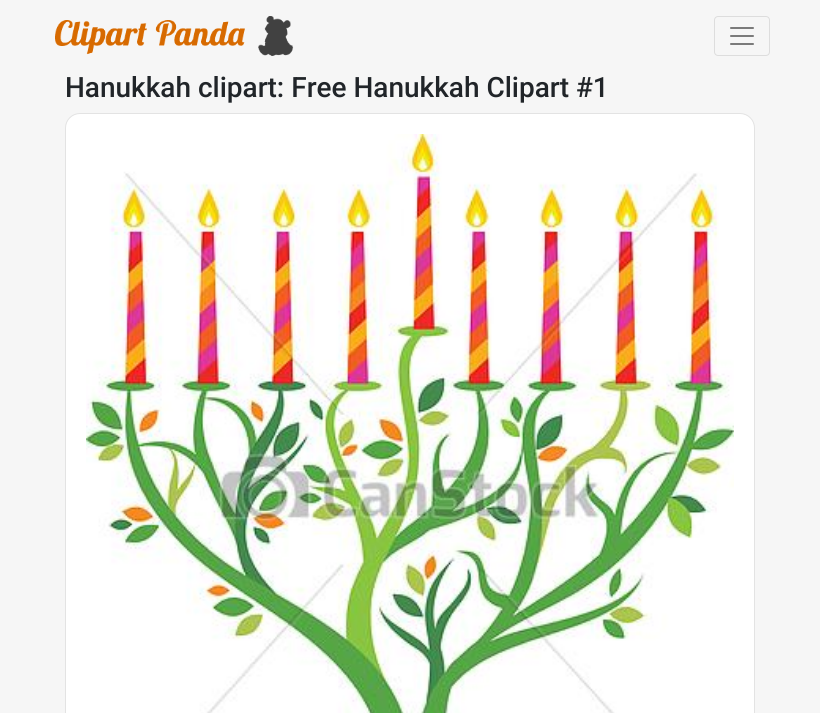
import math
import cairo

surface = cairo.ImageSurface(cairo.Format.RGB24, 820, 713)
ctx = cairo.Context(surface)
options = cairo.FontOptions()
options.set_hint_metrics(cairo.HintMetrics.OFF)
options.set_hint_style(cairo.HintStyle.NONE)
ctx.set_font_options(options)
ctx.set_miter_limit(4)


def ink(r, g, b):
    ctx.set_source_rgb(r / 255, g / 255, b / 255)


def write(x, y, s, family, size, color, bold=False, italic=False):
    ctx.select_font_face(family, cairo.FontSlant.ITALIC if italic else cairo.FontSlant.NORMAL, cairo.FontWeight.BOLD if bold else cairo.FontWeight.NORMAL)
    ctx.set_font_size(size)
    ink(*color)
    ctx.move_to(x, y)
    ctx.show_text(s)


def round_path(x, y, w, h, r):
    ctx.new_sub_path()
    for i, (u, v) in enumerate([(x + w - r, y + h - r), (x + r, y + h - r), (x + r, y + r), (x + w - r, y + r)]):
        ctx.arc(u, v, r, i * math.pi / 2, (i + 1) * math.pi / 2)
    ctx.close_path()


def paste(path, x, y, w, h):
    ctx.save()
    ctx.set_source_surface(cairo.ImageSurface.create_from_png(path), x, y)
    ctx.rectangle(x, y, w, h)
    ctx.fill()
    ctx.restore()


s1 = dict(family="Roboto Medium", size=28, color=(33, 37, 41))

ink(246, 246, 246)
ctx.paint()
paste("pic1.png", 55, 16, 239, 40)
round_path(714.5, 16.5, 55, 39, 3.5)
ink(221, 221, 221)
ctx.set_line_width(1)
ctx.stroke()
paste("pic2.png", 730, 27, 24, 18)
write(65, 97, "Hanukkah clipart: Free Hanukkah Clipart #1", **s1)
ink(255, 255, 255)
round_path(65.5, 113.5, 689, 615, 14.5)
ctx.fill_preserve()
ink(227, 227, 227)
ctx.stroke()
paste("pic3.png", 86, 134, 648, 579)
surface.write_to_png("screenshot.png")
